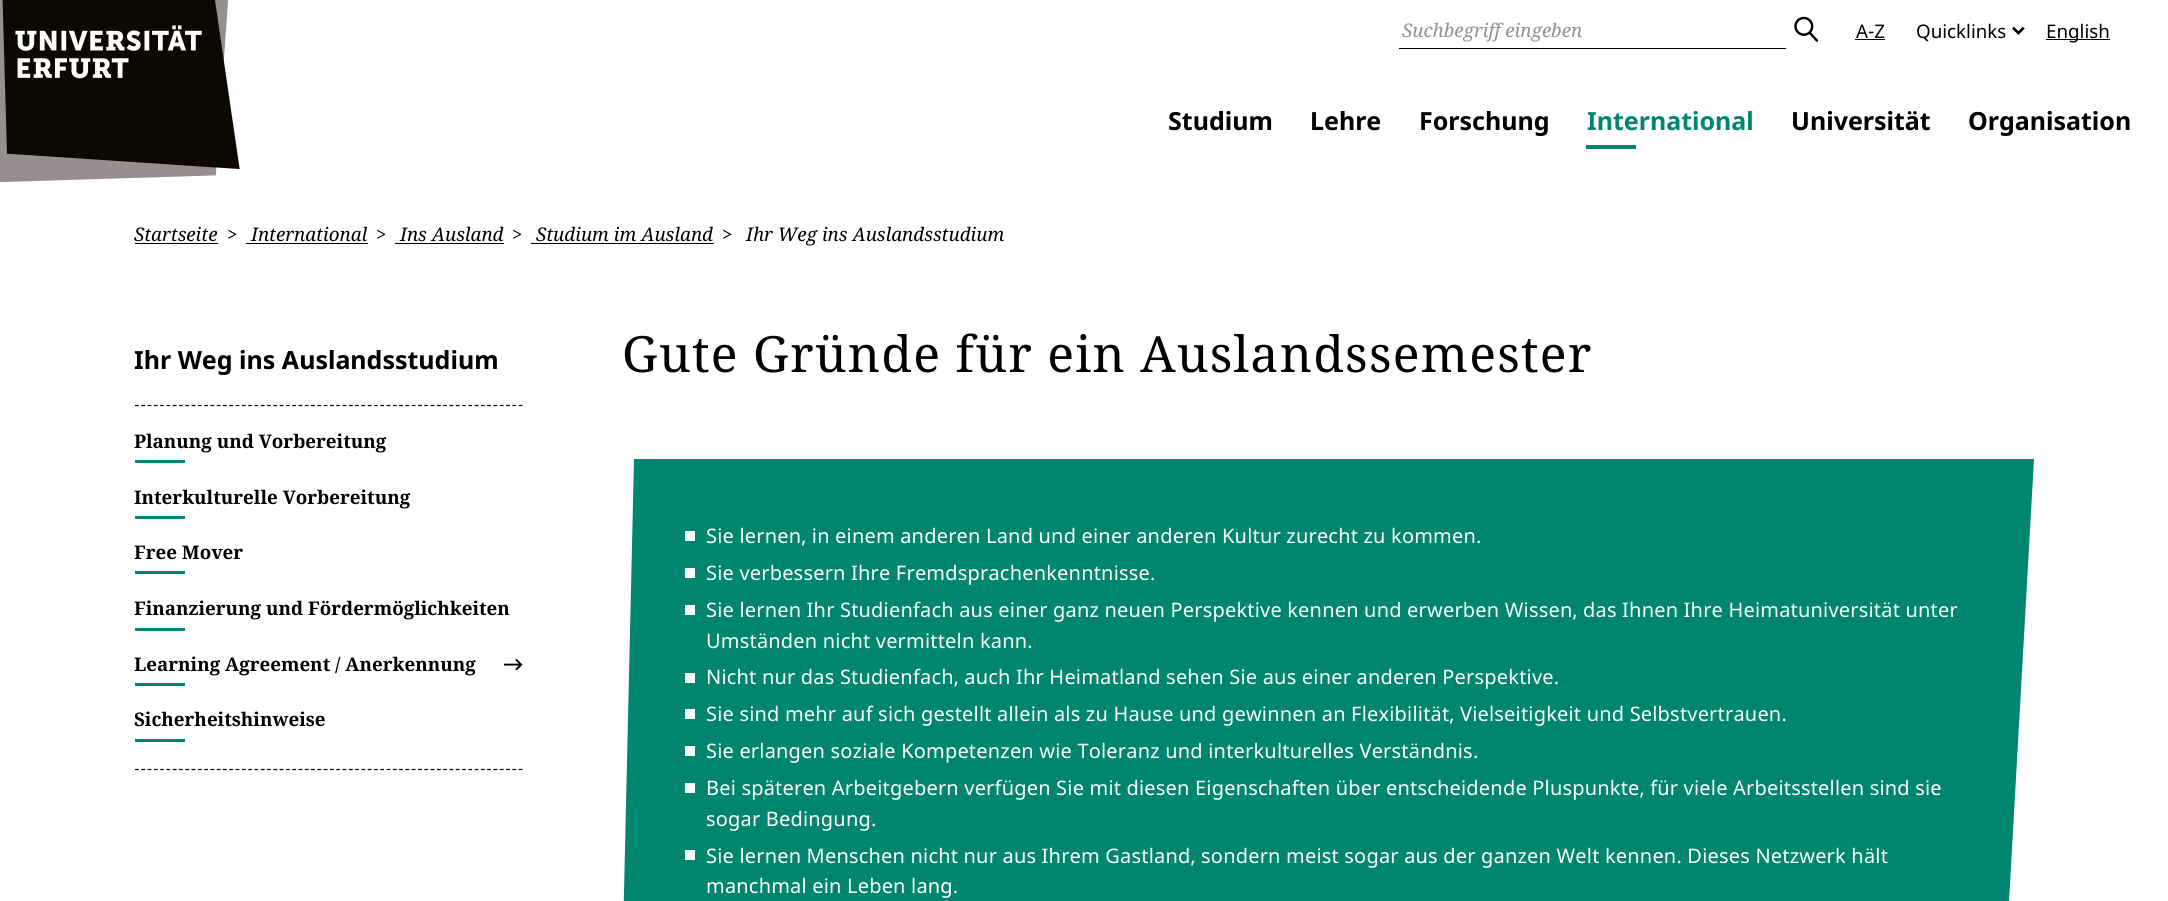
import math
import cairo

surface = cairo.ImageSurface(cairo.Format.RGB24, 2168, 901)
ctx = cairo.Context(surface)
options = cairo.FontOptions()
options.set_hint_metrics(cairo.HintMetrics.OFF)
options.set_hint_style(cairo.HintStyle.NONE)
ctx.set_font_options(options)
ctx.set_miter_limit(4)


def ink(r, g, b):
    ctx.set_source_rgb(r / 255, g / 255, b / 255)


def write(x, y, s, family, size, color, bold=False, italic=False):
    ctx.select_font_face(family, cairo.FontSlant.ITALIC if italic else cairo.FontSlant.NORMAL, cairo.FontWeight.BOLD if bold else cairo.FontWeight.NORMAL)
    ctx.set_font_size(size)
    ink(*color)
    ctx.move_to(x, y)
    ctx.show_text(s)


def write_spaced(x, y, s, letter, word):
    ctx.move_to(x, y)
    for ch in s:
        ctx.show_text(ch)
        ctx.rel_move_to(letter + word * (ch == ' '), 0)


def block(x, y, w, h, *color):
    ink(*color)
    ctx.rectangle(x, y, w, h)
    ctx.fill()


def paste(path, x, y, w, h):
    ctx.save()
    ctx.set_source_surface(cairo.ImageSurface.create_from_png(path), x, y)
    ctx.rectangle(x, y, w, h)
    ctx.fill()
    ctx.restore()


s1 = dict(family="Noto Serif", size=18.75, color=(151, 142, 144), italic=True)
s2 = dict(family="Noto Sans", size=18.75, color=(0, 0, 0))
s3 = dict(family="Noto Sans", size=25, color=(0, 0, 0), bold=True)
s4 = dict(family="Noto Sans", size=25, color=(0, 133, 111), bold=True)
s5 = dict(family="Noto Serif", size=18.75, color=(0, 0, 0), italic=True)
s6 = dict(family="Noto Serif", size=18.75, color=(0, 0, 0), bold=True)

ink(255, 255, 255)
ctx.paint()
paste("pic1.png", 0, 0, 240, 183)
block(1399, 48, 387, 1, 0, 0, 0)
write(1402, 37, "Suchbegriff eingeben", **s1)
paste("pic2.png", 1794, 16, 25, 26)
write(1856, 38, "A-Z", **s2)
block(1855, 39, 30, 1, 0, 0, 0)
write(1916, 38, "Quicklinks", **s2)
paste("pic3.png", 2012, 26, 13, 9)
block(2046, 39, 64, 1, 0, 0, 0)
write(2046, 38, "English", **s2)
write(1168, 130, "Studium", **s3)
write(1310, 130, "Lehre", **s3)
write(1419, 130, "Forschung", **s3)
write(1587, 130, "International", **s4)
block(1586, 145, 50, 4, 0, 133, 111)
write(1791, 130, "Universität", **s3)
write(1968, 130, "Organisation", **s3)
write(134, 241, "Startseite", **s5)
block(135, 243, 83, 1, 0, 0, 0)
write(227, 241, ">", **s5)
write(251, 241, "International", **s5)
block(246, 243, 122, 1, 0, 0, 0)
write(376, 241, ">", **s5)
write(400, 241, "Ins Ausland", **s5)
block(395, 243, 109, 1, 0, 0, 0)
write(512, 241, ">", **s5)
write(536, 241, "Studium im Ausland", **s5)
block(531, 243, 183, 1, 0, 0, 0)
write(722, 241, ">", **s5)
write(746, 241, "Ihr Weg ins Auslandsstudium", **s5)
write(134, 369, "Ihr Weg ins Auslandsstudium", **s3)
ctx.new_path()
ctx.move_to(135, 405.5)
ctx.line_to(522.5, 405.5)
ctx.set_line_width(1.2)
ctx.set_dash([3.75, 2.54])
ctx.stroke()
ctx.new_path()
ctx.move_to(135, 769.5)
ctx.line_to(522.5, 769.5)
ctx.stroke()
write(134, 448, "Planung und Vorbereitung", **s6)
block(135, 460, 50, 3, 0, 133, 111)
write(134, 504, "Interkulturelle Vorbereitung", **s6)
block(135, 516, 50, 3, 0, 133, 111)
write(134, 559, "Free Mover", **s6)
block(135, 571, 50, 3, 0, 133, 111)
write(134, 615, "Finanzierung und Fördermöglichkeiten", **s6)
block(135, 628, 50, 3, 0, 133, 111)
write(134, 671, "Learning Agreement / Anerkennung", **s6)
block(135, 683, 50, 3, 0, 133, 111)
paste("pic4.png", 504, 659, 19, 11)
write(134, 726, "Sicherheitshinweise", **s6)
block(135, 739, 50, 3, 0, 133, 111)
ctx.select_font_face("Noto Serif")
ctx.set_font_size(50)
ink(0, 0, 0)
write_spaced(622, 372, "Gute Gründe für ein Auslandssemester", 1.25, 0)
ink(0, 133, 111)
ctx.new_path()
ctx.move_to(623, 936)
ctx.line_to(634, 459)
ctx.line_to(2034, 459)
ctx.line_to(2003, 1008)
ctx.line_to(623, 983)
ctx.close_path()
ctx.fill()
block(685, 531, 10, 10, 255, 255, 255)
ctx.select_font_face("Noto Sans")
ctx.set_font_size(20)
write_spaced(706, 543, "Sie lernen, in einem anderen Land und einer anderen Kultur zurecht zu kommen.", 0.19, 0)
block(685, 568, 10, 10, 255, 255, 255)
write_spaced(706, 580, "Sie verbessern Ihre Fremdsprachenkenntnisse.", 0.19, 0)
block(685, 605, 10, 10, 255, 255, 255)
write_spaced(706, 617, "Sie lernen Ihr Studienfach aus einer ganz neuen Perspektive kennen und erwerben Wissen, das Ihnen Ihre Heimatuniversität unter", 0.19, 0)
write_spaced(706, 648, "Umständen nicht vermitteln kann.", 0.19, 0)
block(685, 673, 10, 10, 255, 255, 255)
write_spaced(706, 684, "Nicht nur das Studienfach, auch Ihr Heimatland sehen Sie aus einer anderen Perspektive.", 0.19, 0)
block(685, 709, 10, 10, 255, 255, 255)
write_spaced(706, 721, "Sie sind mehr auf sich gestellt allein als zu Hause und gewinnen an Flexibilität, Vielseitigkeit und Selbstvertrauen.", 0.19, 0)
block(685, 746, 10, 10, 255, 255, 255)
write_spaced(706, 758, "Sie erlangen soziale Kompetenzen wie Toleranz und interkulturelles Verständnis.", 0.19, 0)
block(685, 783, 10, 10, 255, 255, 255)
write_spaced(706, 795, "Bei späteren Arbeitgebern verfügen Sie mit diesen Eigenschaften über entscheidende Pluspunkte, für viele Arbeitsstellen sind sie", 0.19, 0)
write_spaced(706, 826, "sogar Bedingung.", 0.19, 0)
block(685, 850, 10, 10, 255, 255, 255)
write_spaced(706, 863, "Sie lernen Menschen nicht nur aus Ihrem Gastland, sondern meist sogar aus der ganzen Welt kennen. Dieses Netzwerk hält", 0.19, 0)
write_spaced(706, 893, "manchmal ein Leben lang.", 0.19, 0)
surface.write_to_png("screenshot.png")
